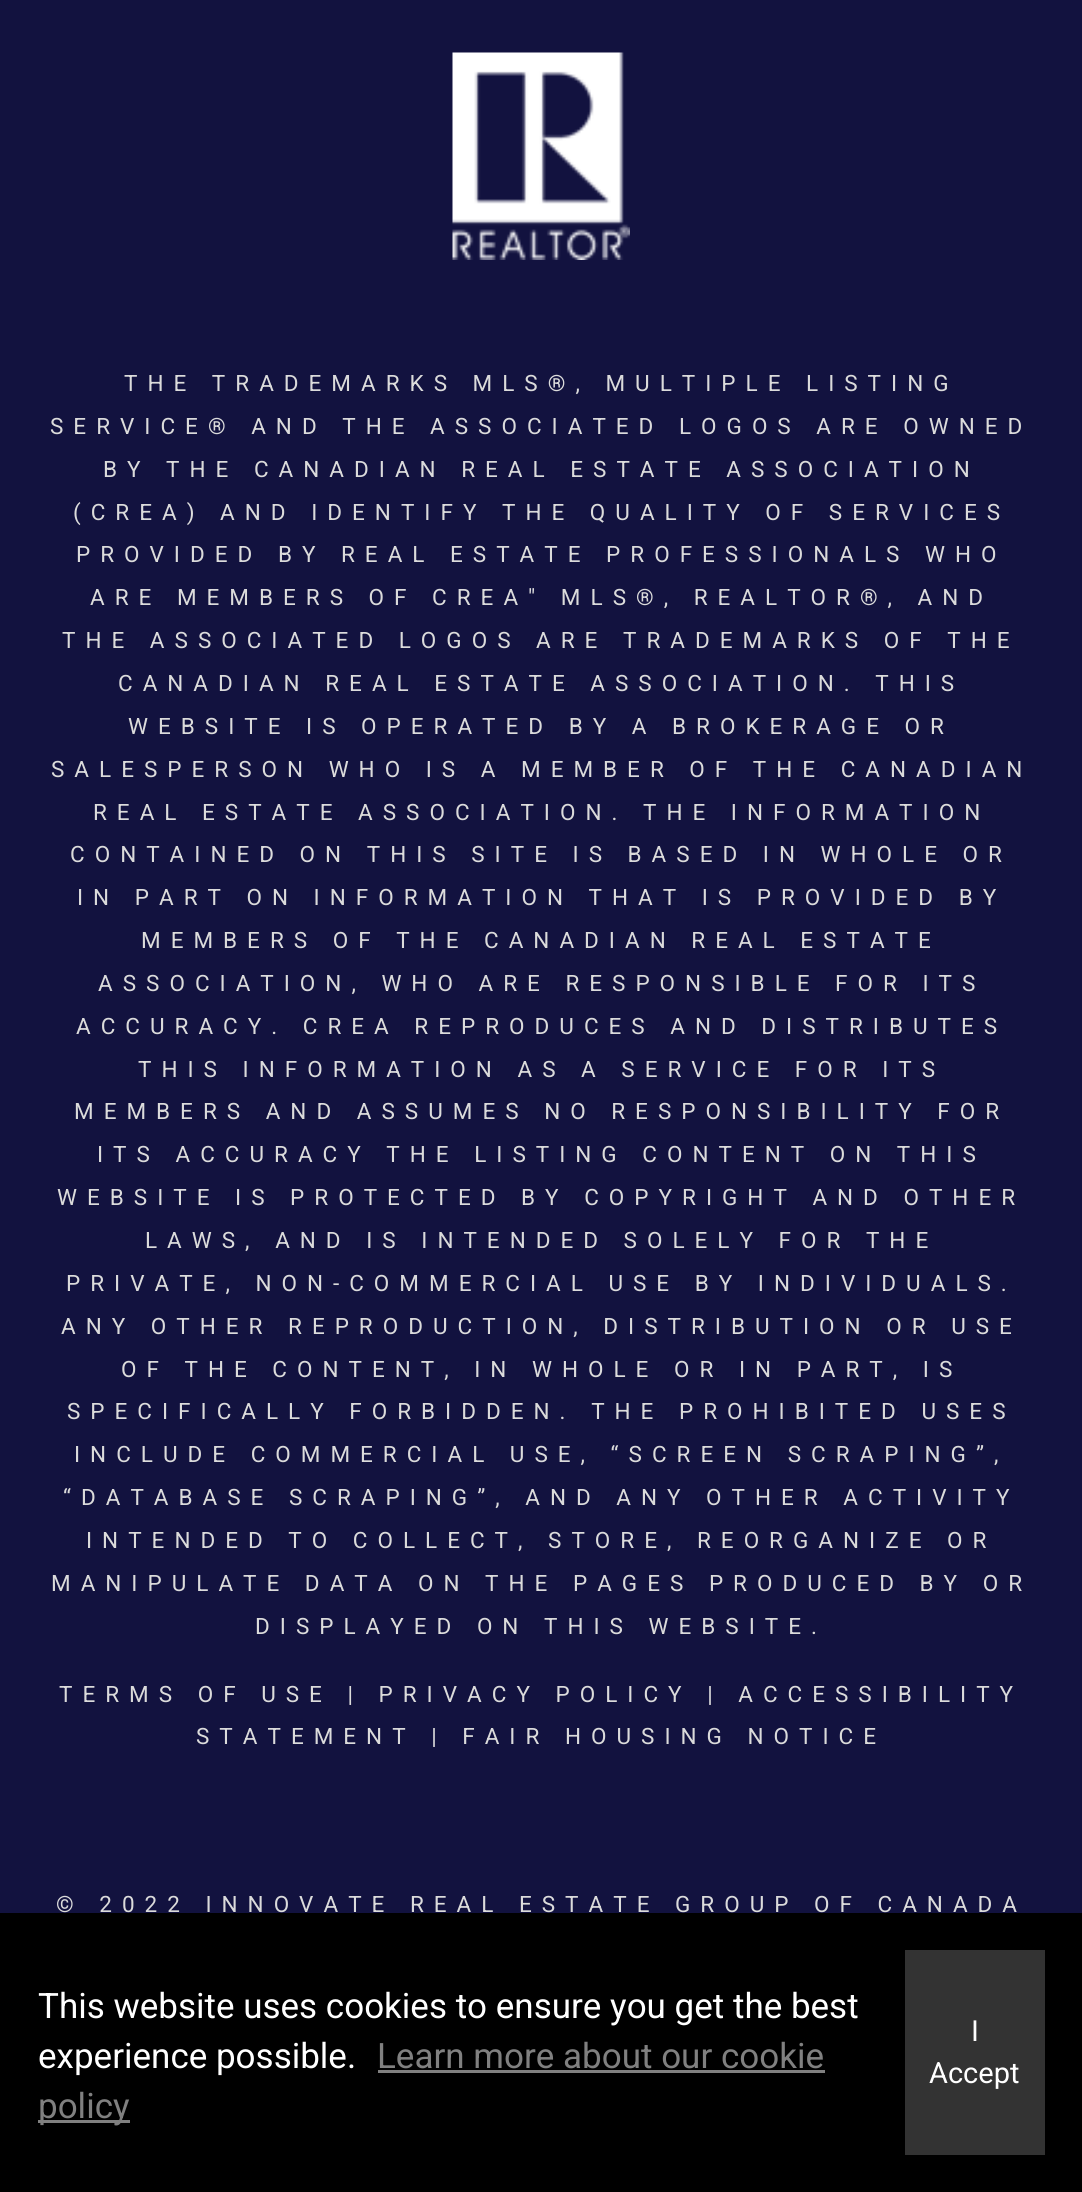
import math
import cairo

surface = cairo.ImageSurface(cairo.Format.RGB24, 1082, 2192)
ctx = cairo.Context(surface)
options = cairo.FontOptions()
options.set_hint_metrics(cairo.HintMetrics.OFF)
options.set_hint_style(cairo.HintStyle.NONE)
ctx.set_font_options(options)
ctx.set_miter_limit(4)


def ink(r, g, b):
    ctx.set_source_rgb(r / 255, g / 255, b / 255)


def write(x, y, s, family, size, color, bold=False, italic=False):
    ctx.select_font_face(family, cairo.FontSlant.ITALIC if italic else cairo.FontSlant.NORMAL, cairo.FontWeight.BOLD if bold else cairo.FontWeight.NORMAL)
    ctx.set_font_size(size)
    ink(*color)
    ctx.move_to(x, y)
    ctx.show_text(s)


def write_spaced(x, y, s, letter, word):
    ctx.move_to(x, y)
    for ch in s:
        ctx.show_text(ch)
        ctx.rel_move_to(letter + word * (ch == ' '), 0)


def block(x, y, w, h, *color):
    ink(*color)
    ctx.rectangle(x, y, w, h)
    ctx.fill()


def paste(path, x, y, w, h):
    ctx.save()
    ctx.set_source_surface(cairo.ImageSurface.create_from_png(path), x, y)
    ctx.rectangle(x, y, w, h)
    ctx.fill()
    ctx.restore()


s1 = dict(family="Roboto", size=35, color=(255, 255, 255))
s2 = dict(family="Roboto", size=35, color=(128, 128, 128))
s3 = dict(family="Roboto", size=29, color=(255, 255, 255))

ink(18, 18, 63)
ctx.paint()
paste("pic1.png", 452, 52, 178, 208)
ctx.select_font_face("Roboto")
ctx.set_font_size(22.5)
ink(219, 219, 219)
write_spaced(124, 391, "THE TRADEMARKS MLS®, MULTIPLE LISTING", 10, 0)
write_spaced(50, 434, "SERVICE® AND THE ASSOCIATED LOGOS ARE OWNED", 10, 0)
write_spaced(103, 477, "BY THE CANADIAN REAL ESTATE ASSOCIATION", 10, 0)
write_spaced(73, 520, "(CREA) AND IDENTIFY THE QUALITY OF SERVICES", 10, 0)
write_spaced(76, 562, "PROVIDED BY REAL ESTATE PROFESSIONALS WHO", 10, 0)
write_spaced(90, 605, "ARE MEMBERS OF CREA\" MLS®, REALTOR®, AND", 10, 0)
write_spaced(62, 648, "THE ASSOCIATED LOGOS ARE TRADEMARKS OF THE", 10, 0)
write_spaced(118, 691, "CANADIAN REAL ESTATE ASSOCIATION. THIS", 10, 0)
write_spaced(128, 734, "WEBSITE IS OPERATED BY A BROKERAGE OR", 10, 0)
write_spaced(51, 777, "SALESPERSON WHO IS A MEMBER OF THE CANADIAN", 10, 0)
write_spaced(93, 820, "REAL ESTATE ASSOCIATION. THE INFORMATION", 10, 0)
write_spaced(70, 862, "CONTAINED ON THIS SITE IS BASED IN WHOLE OR", 10, 0)
write_spaced(77, 905, "IN PART ON INFORMATION THAT IS PROVIDED BY", 10, 0)
write_spaced(141, 948, "MEMBERS OF THE CANADIAN REAL ESTATE", 10, 0)
write_spaced(98, 991, "ASSOCIATION, WHO ARE RESPONSIBLE FOR ITS", 10, 0)
write_spaced(76, 1034, "ACCURACY. CREA REPRODUCES AND DISTRIBUTES", 10, 0)
write_spaced(138, 1077, "THIS INFORMATION AS A SERVICE FOR ITS", 10, 0)
write_spaced(74, 1119, "MEMBERS AND ASSUMES NO RESPONSIBILITY FOR", 10, 0)
write_spaced(97, 1162, "ITS ACCURACY THE LISTING CONTENT ON THIS", 10, 0)
write_spaced(57, 1205, "WEBSITE IS PROTECTED BY COPYRIGHT AND OTHER", 10, 0)
write_spaced(145, 1248, "LAWS, AND IS INTENDED SOLELY FOR THE", 10, 0)
write_spaced(66, 1291, "PRIVATE, NON-COMMERCIAL USE BY INDIVIDUALS.", 10, 0)
write_spaced(61, 1334, "ANY OTHER REPRODUCTION, DISTRIBUTION OR USE", 10, 0)
write_spaced(121, 1377, "OF THE CONTENT, IN WHOLE OR IN PART, IS", 10, 0)
write_spaced(67, 1419, "SPECIFICALLY FORBIDDEN. THE PROHIBITED USES", 10, 0)
write_spaced(74, 1462, "INCLUDE COMMERCIAL USE, “SCREEN SCRAPING”,", 10, 0)
write_spaced(63, 1505, "“DATABASE SCRAPING”, AND ANY OTHER ACTIVITY", 10, 0)
write_spaced(86, 1548, "INTENDED TO COLLECT, STORE, REORGANIZE OR", 10, 0)
write_spaced(51, 1591, "MANIPULATE DATA ON THE PAGES PRODUCED BY OR", 10, 0)
write_spaced(255, 1634, "DISPLAYED ON THIS WEBSITE.", 10, 0)
write_spaced(59, 1702, "TERMS OF USE | PRIVACY POLICY | ACCESSIBILITY", 10, 0)
write_spaced(196, 1744, "STATEMENT | FAIR HOUSING NOTICE", 10, 0)
write_spaced(56, 1912, "© 2022 INNOVATE REAL ESTATE GROUP OF CANADA", 10, 0)
block(0, 1913, 1082, 279, 0, 0, 0)
write(38, 2018, "This website uses cookies to ensure you get the best", **s1)
write(38, 2068, "experience possible.", **s1)
write(377, 2068, "Learn more about our cookie", **s2)
block(378, 2070, 447, 3, 128, 128, 128)
block(38, 2120, 92, 3, 128, 128, 128)
write(38, 2118, "policy", **s2)
block(905, 1950, 140, 205, 51, 51, 51)
write(971, 2041, "I", **s3)
write(929, 2083, "Accept", **s3)
surface.write_to_png("screenshot.png")
